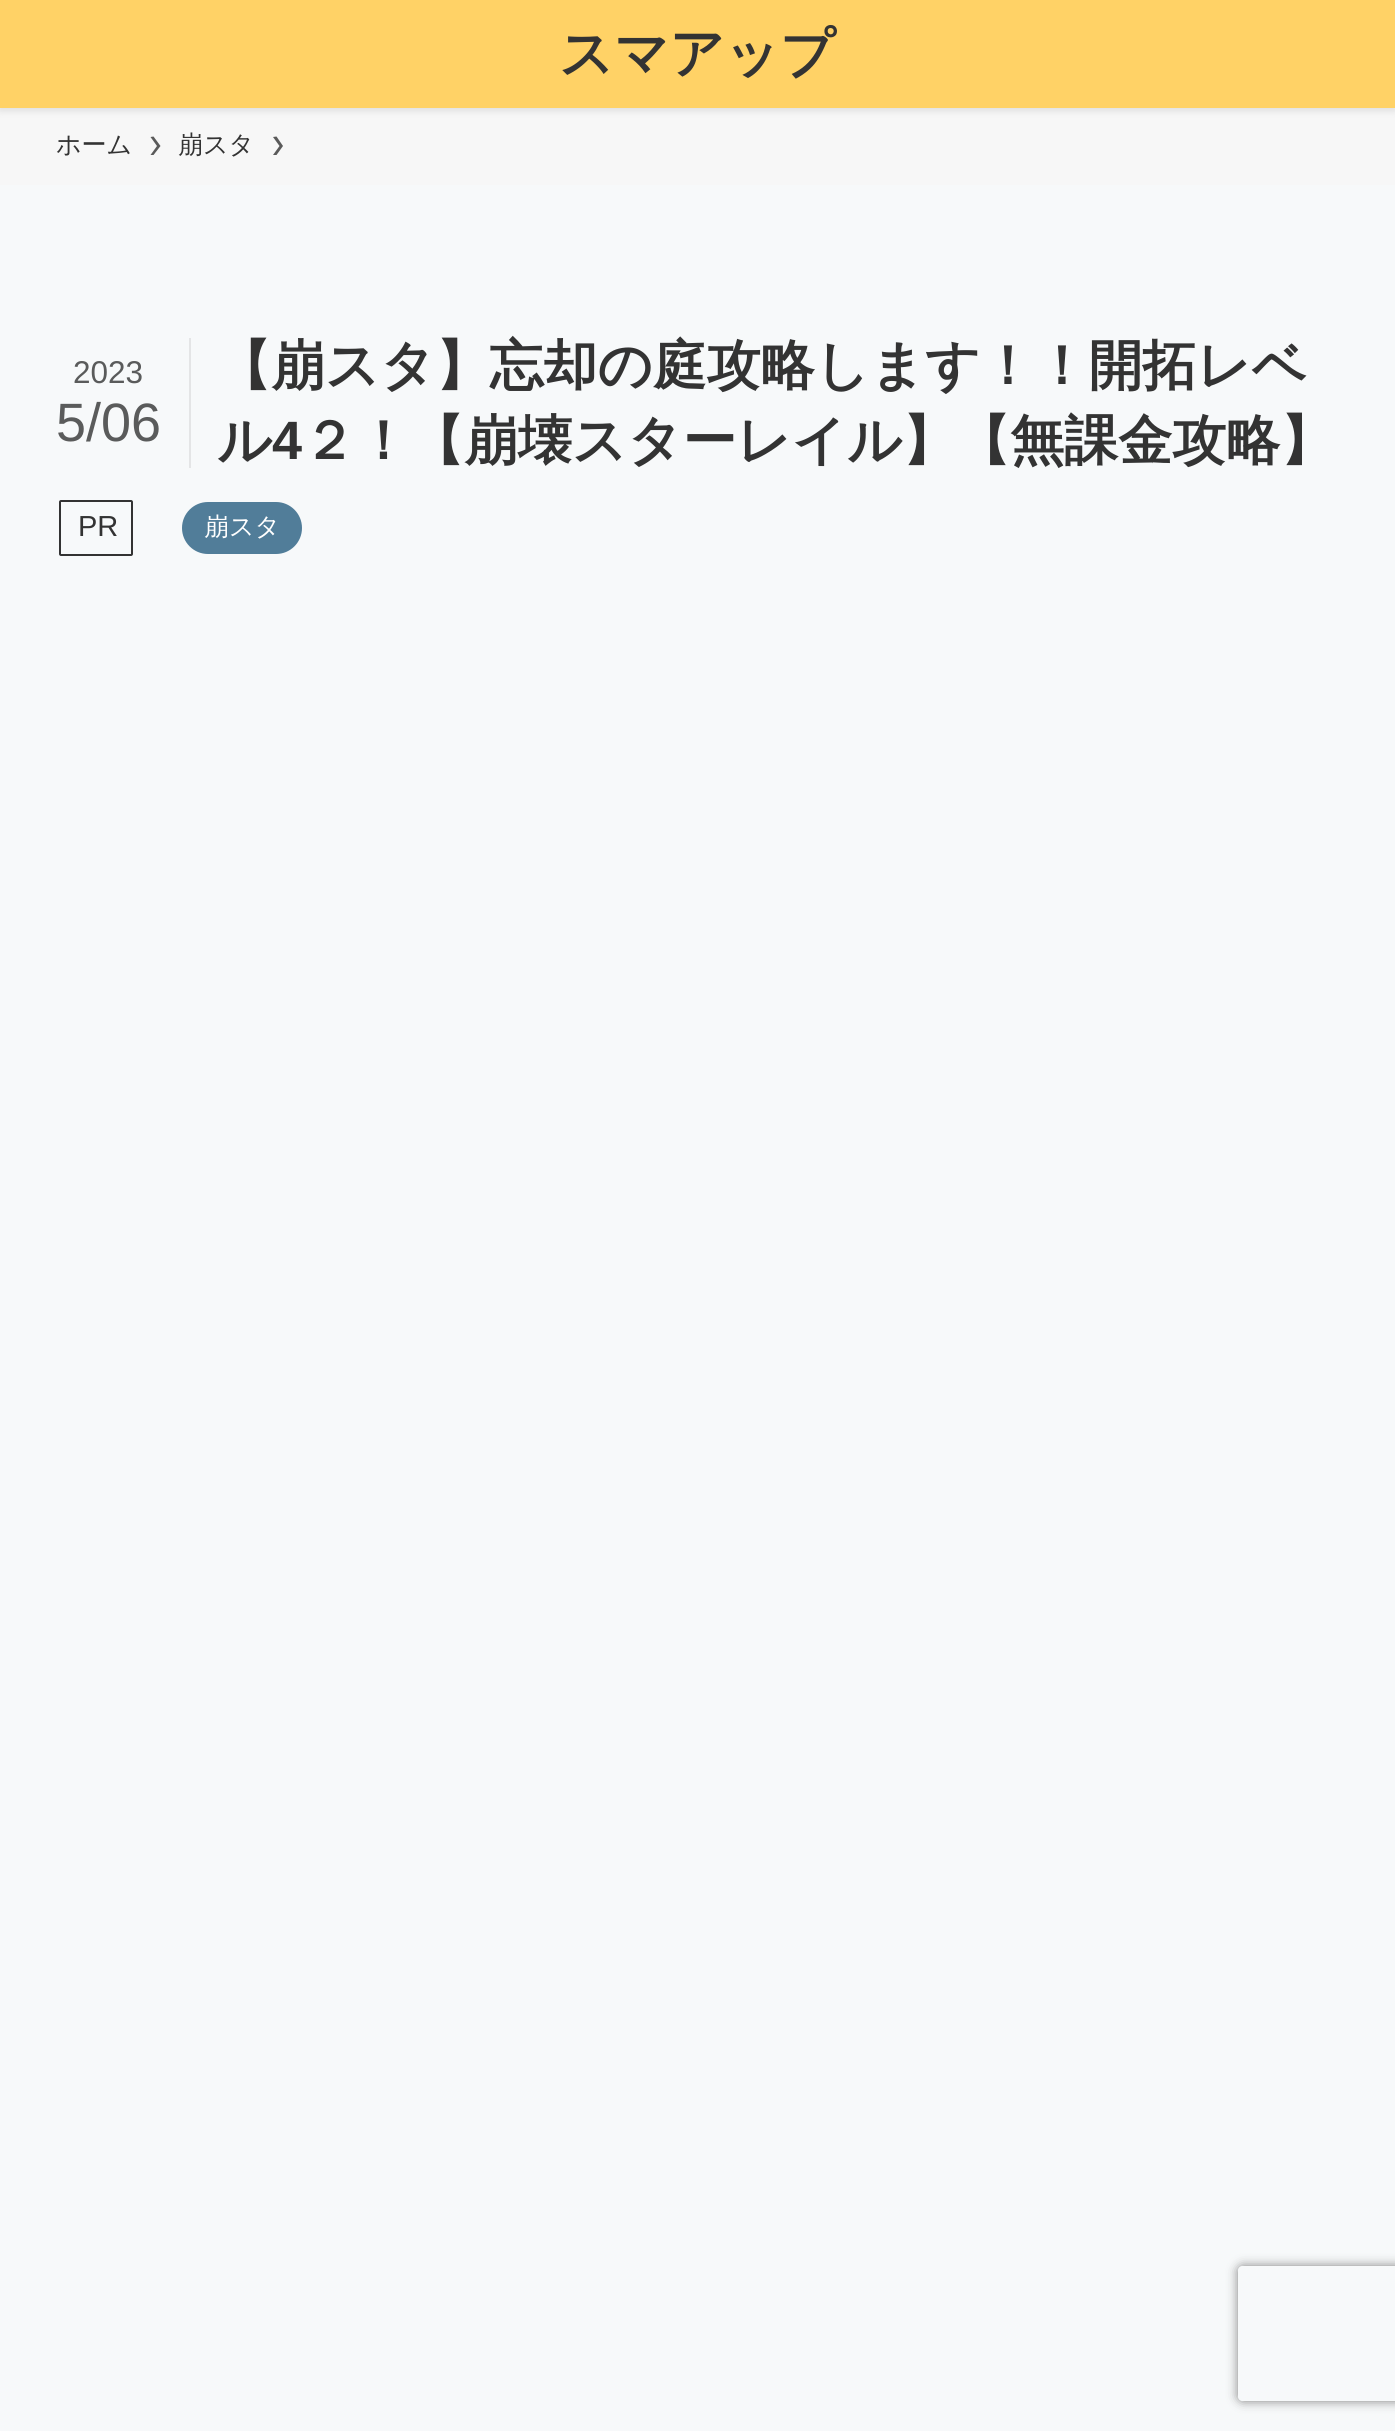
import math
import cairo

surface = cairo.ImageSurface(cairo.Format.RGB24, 1395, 2431)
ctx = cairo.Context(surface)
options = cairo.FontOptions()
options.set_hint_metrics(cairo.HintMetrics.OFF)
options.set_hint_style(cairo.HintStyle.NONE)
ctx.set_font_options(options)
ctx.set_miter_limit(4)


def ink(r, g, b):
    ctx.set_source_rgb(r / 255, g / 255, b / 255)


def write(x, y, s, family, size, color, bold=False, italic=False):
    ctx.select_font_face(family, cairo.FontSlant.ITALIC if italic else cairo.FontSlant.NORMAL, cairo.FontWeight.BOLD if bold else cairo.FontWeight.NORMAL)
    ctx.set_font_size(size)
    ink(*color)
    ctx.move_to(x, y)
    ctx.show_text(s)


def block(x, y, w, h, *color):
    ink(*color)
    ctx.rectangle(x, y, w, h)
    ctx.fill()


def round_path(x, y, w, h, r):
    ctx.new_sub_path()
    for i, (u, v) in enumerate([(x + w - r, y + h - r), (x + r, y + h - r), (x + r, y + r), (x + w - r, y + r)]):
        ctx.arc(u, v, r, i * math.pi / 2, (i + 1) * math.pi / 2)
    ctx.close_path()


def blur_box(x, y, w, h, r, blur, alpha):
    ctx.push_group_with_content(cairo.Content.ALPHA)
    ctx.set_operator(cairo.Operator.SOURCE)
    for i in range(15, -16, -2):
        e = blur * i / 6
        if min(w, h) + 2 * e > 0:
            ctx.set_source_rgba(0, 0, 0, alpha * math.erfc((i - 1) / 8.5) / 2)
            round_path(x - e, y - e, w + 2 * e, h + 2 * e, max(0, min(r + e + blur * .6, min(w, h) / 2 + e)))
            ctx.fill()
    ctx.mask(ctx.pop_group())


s1 = dict(family="WenQuanYi Zen Hei", size=54, color=(51, 51, 51), bold=True)
s2 = dict(family="WenQuanYi Zen Hei Medium", size=25, color=(51, 51, 51))
s3 = dict(family="Liberation Sans", size=31.5, color=(90, 91, 91))
s4 = dict(family="Liberation Sans", size=54, color=(90, 91, 91))
s5 = dict(family="Liberation Sans", size=54, color=(51, 51, 51), bold=True)
s6 = dict(family="Liberation Sans", size=29, color=(51, 51, 51))
s7 = dict(family="WenQuanYi Zen Hei Medium", size=25, color=(255, 255, 255))

ink(247, 249, 250)
ctx.paint()
block(0, 108, 1395, 77, 247, 247, 247)
ink(0, 0, 0)
blur_box(0, 2, 1395, 108, 0, 4.5, 0.12)
block(0, 0, 1395, 108, 255, 210, 102)
write(559, 72, "スマアップ", **s1)
write(56, 153, "ホーム", **s2)
ink(90, 90, 90)
ctx.new_path()
ctx.move_to(153.5, 136.5)
ctx.line_to(150.5, 137)
ctx.line_to(157, 146)
ctx.line_to(150.5, 155)
ctx.line_to(153.5, 155)
ctx.line_to(160.5, 146)
ctx.close_path()
ctx.fill()
write(178, 153, "崩スタ", **s2)
ink(90, 90, 90)
ctx.new_path()
ctx.move_to(276.5, 136.5)
ctx.line_to(273, 137)
ctx.line_to(279.5, 146)
ctx.line_to(273, 155)
ctx.line_to(276.5, 155)
ctx.line_to(283, 146)
ctx.close_path()
ctx.fill()
block(189, 338, 2, 130, 228, 229, 230)
write(73, 383, "2023", **s3)
write(56, 441, "5/06", **s4)
write(217, 384, "【崩スタ】忘却の庭攻略します！！開拓レベ", **s1)
write(217, 459, "ル", **s1)
write(272, 459, "4", **s5)
write(302, 459, "２！【崩壊スターレイル】【無課金攻略】", **s1)
round_path(60, 501, 72, 54, 1)
ctx.stroke()
write(78, 536, "PR", **s6)
ink(81, 125, 153)
round_path(182, 502, 120, 52, 26)
ctx.fill()
write(204, 535, "崩スタ", **s7)
ctx.save()
ctx.set_fill_rule(cairo.FillRule.EVEN_ODD)
ctx.new_path()
ctx.move_to(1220, 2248)
ctx.line_to(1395, 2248)
ctx.line_to(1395, 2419)
ctx.line_to(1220, 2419)
ctx.close_path()
ctx.move_to(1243, 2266)
ctx.line_to(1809, 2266)
ctx.curve_to(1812, 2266, 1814, 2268, 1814, 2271)
ctx.line_to(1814, 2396)
ctx.curve_to(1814, 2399, 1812, 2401, 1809, 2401)
ctx.line_to(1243, 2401)
ctx.curve_to(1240, 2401, 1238, 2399, 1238, 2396)
ctx.line_to(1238, 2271)
ctx.curve_to(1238, 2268, 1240, 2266, 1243, 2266)
ctx.close_path()
ctx.clip()
ink(128, 128, 128)
blur_box(1238, 2266, 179, 135, 5, 5.5, 1)
ctx.restore()
surface.write_to_png("screenshot.png")
